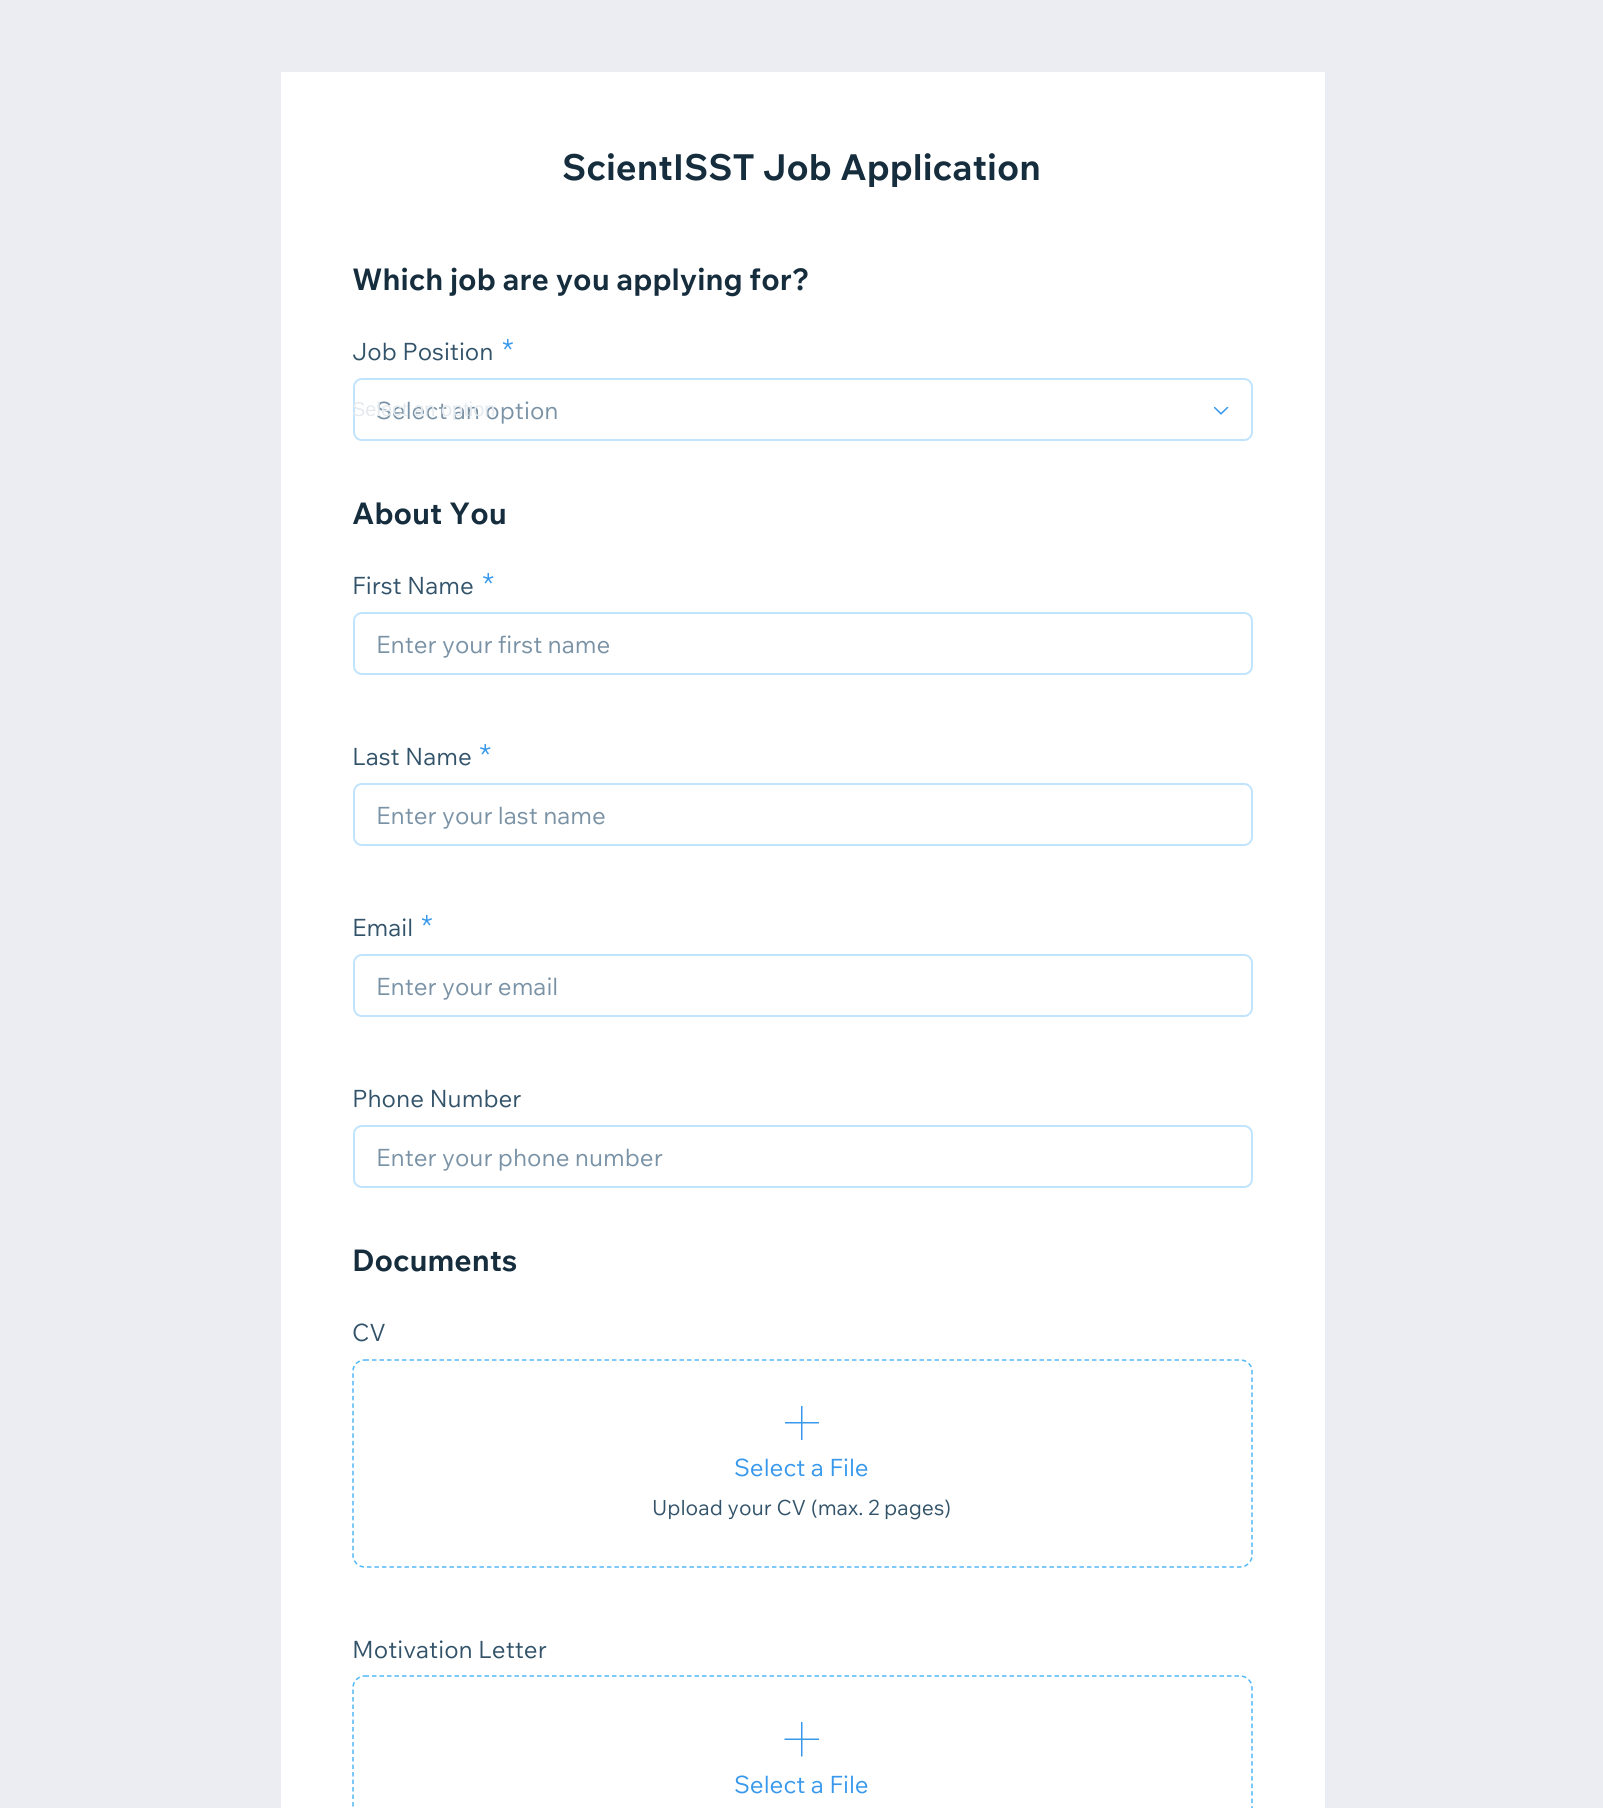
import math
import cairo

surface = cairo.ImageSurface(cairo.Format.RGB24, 1603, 1808)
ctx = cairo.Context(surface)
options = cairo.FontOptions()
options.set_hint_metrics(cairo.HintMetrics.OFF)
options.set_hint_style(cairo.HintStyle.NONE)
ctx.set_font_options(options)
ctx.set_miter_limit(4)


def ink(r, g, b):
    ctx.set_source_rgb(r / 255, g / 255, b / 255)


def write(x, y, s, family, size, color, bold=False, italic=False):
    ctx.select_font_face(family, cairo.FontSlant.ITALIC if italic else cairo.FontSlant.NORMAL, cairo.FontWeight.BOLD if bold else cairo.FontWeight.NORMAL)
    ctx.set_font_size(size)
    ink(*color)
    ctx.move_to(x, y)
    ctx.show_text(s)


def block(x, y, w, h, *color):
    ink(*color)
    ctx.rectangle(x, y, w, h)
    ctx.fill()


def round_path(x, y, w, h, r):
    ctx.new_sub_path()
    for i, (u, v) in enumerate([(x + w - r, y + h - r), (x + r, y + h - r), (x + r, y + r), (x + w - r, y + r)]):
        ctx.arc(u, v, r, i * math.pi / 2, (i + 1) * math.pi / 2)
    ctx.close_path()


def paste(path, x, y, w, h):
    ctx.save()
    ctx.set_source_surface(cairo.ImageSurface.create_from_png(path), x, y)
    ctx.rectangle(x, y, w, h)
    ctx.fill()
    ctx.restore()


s1 = dict(family="Wix Madefor Text", size=36, color=(22, 45, 61), bold=True)
s2 = dict(family="Wix Madefor Text", size=30, color=(22, 45, 61), bold=True)
s3 = dict(family="Wix Madefor Text", size=24, color=(50, 83, 106))
s4 = dict(family="Wix Madefor Text", size=24, color=(122, 146, 165))
s5 = dict(family="Liberation Sans", size=20, color=(229, 234, 238))
s6 = dict(family="Wix Madefor Text", size=21, color=(50, 83, 106))
s7 = dict(family="Wix Madefor Text", size=24, color=(56, 153, 236))

ink(236, 237, 242)
ctx.paint()
block(281, 72, 1044, 1736, 255, 255, 255)
write(562, 180, "ScientISST Job Application", **s1)
write(352, 290, "Which job are you applying for?", **s2)
write(352, 360, "Job Position", **s3)
paste("pic1.png", 503, 339, 10, 11)
round_path(354, 379, 898, 61, 8)
ink(193, 228, 254)
ctx.stroke()
write(376, 419, "Select an option", **s4)
write(352, 416, "Select an option", **s5)
paste("pic2.png", 1214, 407, 15, 8)
write(352, 524, "About You", **s2)
write(352, 594, "First Name", **s3)
paste("pic3.png", 483, 573, 11, 11)
round_path(354, 613, 898, 61, 8)
ink(193, 228, 254)
ctx.stroke()
write(376, 653, "Enter your first name", **s4)
write(352, 765, "Last Name", **s3)
paste("pic3.png", 480, 744, 11, 11)
round_path(354, 784, 898, 61, 8)
ink(193, 228, 254)
ctx.stroke()
write(376, 824, "Enter your last name", **s4)
write(352, 936, "Email", **s3)
paste("pic1.png", 422, 915, 10, 11)
round_path(354, 955, 898, 61, 8)
ink(193, 228, 254)
ctx.stroke()
write(376, 995, "Enter your email", **s4)
write(352, 1107, "Phone Number", **s3)
round_path(354, 1126, 898, 61, 8)
ink(193, 228, 254)
ctx.stroke()
write(376, 1166, "Enter your phone number", **s4)
write(352, 1271, "Documents", **s2)
write(352, 1341, "CV", **s3)
write(652, 1515, "Upload your CV (max. 2 pages)", **s6)
ctx.new_path()
ctx.move_to(364.5, 1360)
ctx.line_to(1240.5, 1360)
ctx.curve_to(1246.5, 1360, 1252, 1365, 1252, 1371)
ctx.line_to(1252, 1555.5)
ctx.curve_to(1252, 1561.5, 1246.5, 1567, 1240.5, 1567)
ctx.line_to(364.5, 1567)
ctx.curve_to(358.5, 1567, 353, 1561.5, 353, 1555.5)
ctx.line_to(353, 1371)
ctx.curve_to(353, 1365, 358.5, 1360, 364.5, 1360)
ctx.close_path()
ink(78, 183, 245)
ctx.set_line_width(1.5)
ctx.set_dash([4.5, 3])
ctx.stroke()
ctx.save()
ctx.rectangle(785, 1406, 34, 34)
ctx.clip()
ink(56, 153, 236)
ctx.new_path()
ctx.move_to(801, 1422)
ctx.line_to(801, 1405.5)
ctx.line_to(802.5, 1405.5)
ctx.line_to(802.5, 1422)
ctx.line_to(819, 1422)
ctx.line_to(819, 1423.5)
ctx.line_to(802.5, 1423.5)
ctx.line_to(802.5, 1440)
ctx.line_to(801, 1440)
ctx.line_to(801, 1423.5)
ctx.line_to(784.5, 1423.5)
ctx.line_to(784.5, 1422)
ctx.close_path()
ctx.fill()
ctx.restore()
write(734, 1476, "Select a File", **s7)
write(352, 1658, "Motivation Letter", **s3)
ctx.new_path()
ctx.move_to(364.5, 1676)
ctx.line_to(1240.5, 1676)
ctx.curve_to(1246.5, 1676, 1252, 1681.5, 1252, 1687.5)
ctx.line_to(1252, 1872)
ctx.curve_to(1252, 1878, 1246.5, 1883, 1240.5, 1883)
ctx.line_to(364.5, 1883)
ctx.curve_to(358.5, 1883, 353, 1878, 353, 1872)
ctx.line_to(353, 1687.5)
ctx.curve_to(353, 1681.5, 358.5, 1676, 364.5, 1676)
ctx.close_path()
ink(78, 183, 245)
ctx.stroke()
ink(56, 153, 236)
ctx.new_path()
ctx.move_to(801, 1738.5)
ctx.line_to(801, 1722)
ctx.line_to(802.5, 1722)
ctx.line_to(802.5, 1738.5)
ctx.line_to(819, 1738.5)
ctx.line_to(819, 1740)
ctx.line_to(802.5, 1740)
ctx.line_to(802.5, 1756.5)
ctx.line_to(801, 1756.5)
ctx.line_to(801, 1740)
ctx.line_to(784.5, 1740)
ctx.line_to(784.5, 1738.5)
ctx.close_path()
ctx.fill()
write(734, 1793, "Select a File", **s7)
surface.write_to_png("screenshot.png")
